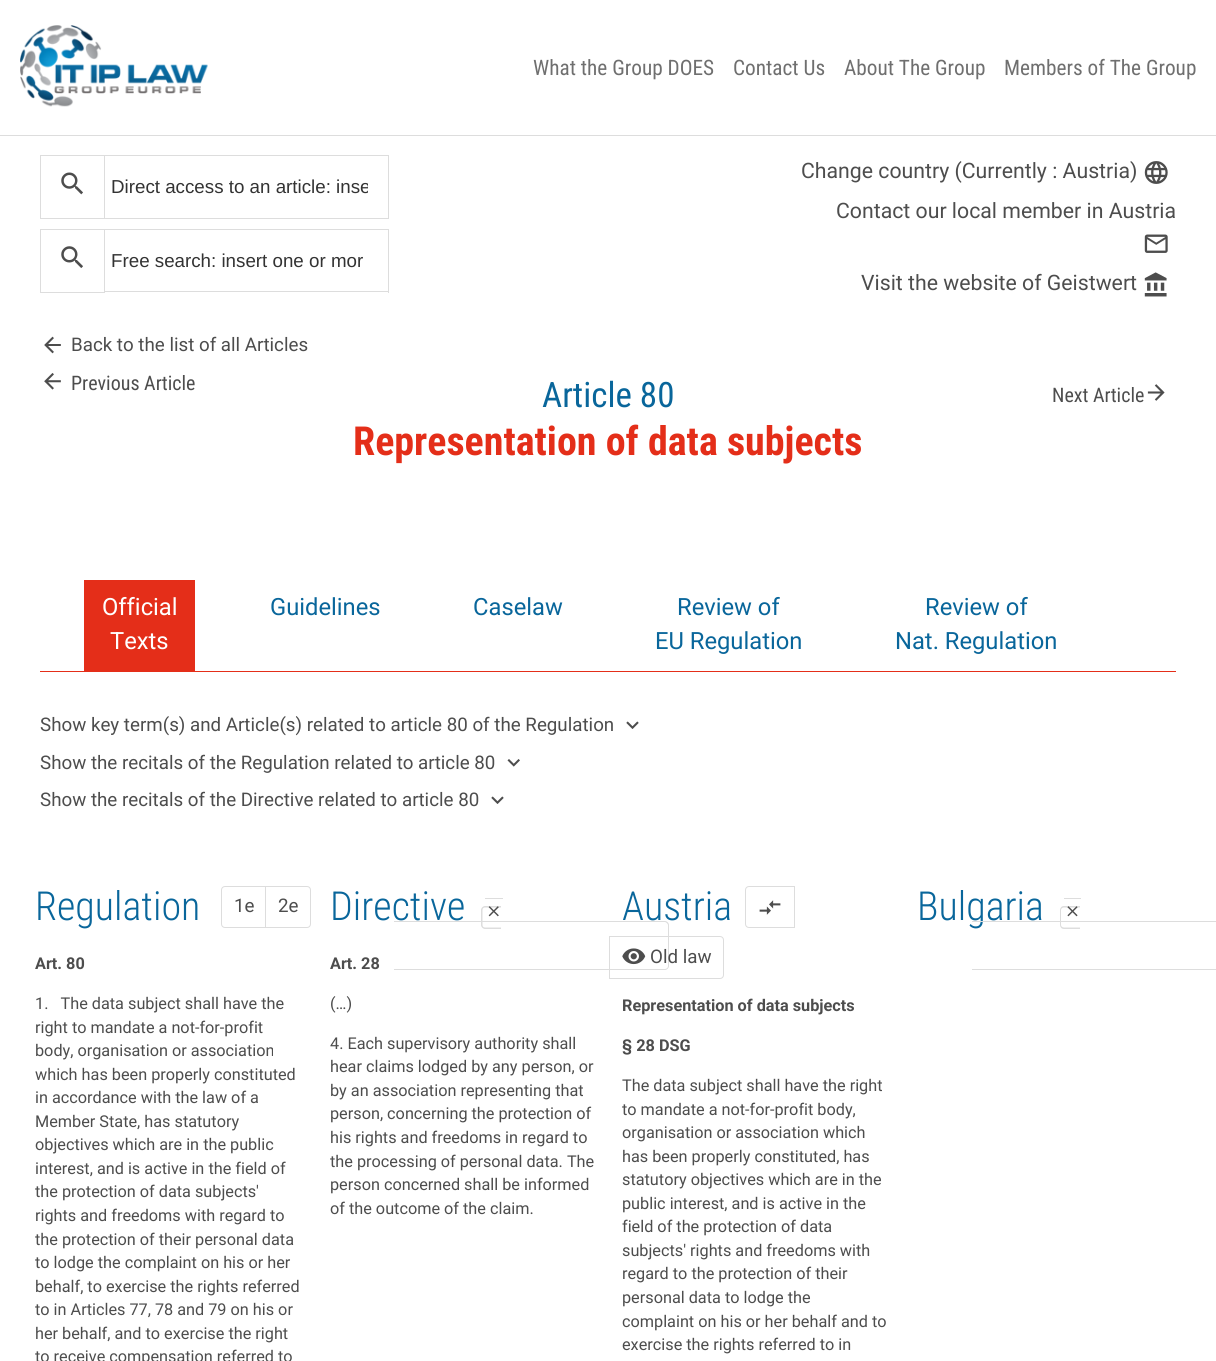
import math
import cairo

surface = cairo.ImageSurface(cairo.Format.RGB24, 1216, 1361)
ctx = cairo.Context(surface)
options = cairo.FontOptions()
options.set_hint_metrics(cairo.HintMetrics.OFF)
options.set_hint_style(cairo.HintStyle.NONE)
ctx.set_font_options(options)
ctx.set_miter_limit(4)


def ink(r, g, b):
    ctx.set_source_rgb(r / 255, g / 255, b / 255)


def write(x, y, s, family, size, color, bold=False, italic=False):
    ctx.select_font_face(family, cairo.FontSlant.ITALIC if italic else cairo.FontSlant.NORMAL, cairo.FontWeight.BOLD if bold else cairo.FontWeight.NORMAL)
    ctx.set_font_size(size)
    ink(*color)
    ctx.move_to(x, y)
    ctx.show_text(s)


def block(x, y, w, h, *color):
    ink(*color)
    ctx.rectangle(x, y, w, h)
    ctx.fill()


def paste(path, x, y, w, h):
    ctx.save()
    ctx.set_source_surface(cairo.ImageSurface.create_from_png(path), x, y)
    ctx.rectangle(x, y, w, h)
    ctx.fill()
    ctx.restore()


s1 = dict(family="Roboto Condensed", size=21.25, color=(111, 111, 111))
s2 = dict(family="Liberation Sans", size=18.75, color=(51, 51, 51))
s3 = dict(family="Roboto", size=18.75, color=(77, 77, 77))
s4 = dict(family="Roboto", size=21.25, color=(77, 77, 77))
s5 = dict(family="Roboto Condensed", size=20, color=(77, 77, 77))
s6 = dict(family="Roboto Condensed", size=35, color=(9, 102, 155))
s7 = dict(family="Roboto Condensed", size=40, color=(228, 46, 25), bold=True)
s8 = dict(family="Roboto", size=23.75, color=(255, 255, 255))
s9 = dict(family="Roboto", size=23.75, color=(9, 102, 155))
s10 = dict(family="Roboto Condensed Light", size=40, color=(9, 102, 155))
s11 = dict(family="Roboto", size=16.25, color=(77, 77, 77), bold=True)
s12 = dict(family="Roboto", size=16.25, color=(77, 77, 77))

ink(255, 255, 255)
ctx.paint()
block(0, 135, 1216, 1, 221, 221, 221)
paste("pic1.png", 20, 25, 188, 82)
write(533, 75, "What the Group DOES", **s1)
write(733, 75, "Contact Us", **s1)
write(844, 75, "About The Group", **s1)
write(1004, 75, "Members of The Group", **s1)
ctx.rectangle(40.5, 155.5, 64, 63)
ink(221, 221, 221)
ctx.set_line_width(1)
ctx.stroke()
paste("pic2.png", 61, 172, 22, 23)
block(105, 155, 284, 1, 221, 221, 221)
block(388, 155, 1, 64, 221, 221, 221)
block(105, 218, 284, 1, 221, 221, 221)
ctx.save()
ctx.rectangle(111, 176, 257, 22)
ctx.clip()
write(111, 193, "Direct access to an article: inse", **s2)
ctx.restore()
ctx.rectangle(40.5, 229.5, 64, 63)
ctx.stroke()
paste("pic3.png", 61, 246, 22, 22)
block(105, 229, 284, 1, 221, 221, 221)
block(388, 229, 1, 64, 221, 221, 221)
block(105, 291, 284, 1, 221, 221, 221)
write(111, 267, "Free search: insert one or mor", **s2)
paste("pic4.png", 44, 336, 17, 18)
write(71, 351, "Back to the list of all Articles", **s3)
write(801, 178, "Change country (Currently : Austria)", **s4)
paste("pic5.png", 1144, 161, 24, 23)
write(836, 218, "Contact our local member in Austria", **s4)
paste("pic6.png", 1144, 234, 24, 19)
write(861, 290, "Visit the website of Geistwert", **s4)
paste("pic7.png", 1144, 272, 23, 25)
paste("pic8.png", 44, 373, 17, 17)
write(71, 390, "Previous Article", **s5)
write(542, 407, "Article 80", **s6)
write(1052, 402, "Next Article", **s5)
paste("pic9.png", 1147, 384, 18, 17)
write(353, 455, "Representation of data subjects", **s7)
block(40, 671, 1136, 1, 228, 46, 25)
block(84, 580, 111, 91, 228, 46, 25)
write(102, 615, "Official", **s8)
write(110, 649, "Texts", **s8)
write(270, 615, "Guidelines", **s9)
write(473, 615, "Caselaw", **s9)
write(677, 615, "Review of", **s9)
write(655, 649, "EU Regulation", **s9)
write(925, 615, "Review of", **s9)
write(895, 649, "Nat. Regulation", **s9)
write(40, 731, "Show key term(s) and Article(s) related to article 80 of the Regulation", **s3)
paste("pic10.png", 626, 721, 13, 8)
write(40, 769, "Show the recitals of the Regulation related to article 80", **s3)
paste("pic11.png", 507, 759, 13, 8)
write(40, 806, "Show the recitals of the Directive related to article 80", **s3)
paste("pic10.png", 491, 796, 13, 8)
write(35, 920, "Regulation", **s10)
ctx.new_path()
ctx.move_to(225, 886.5)
ctx.line_to(265.5, 886.5)
ctx.line_to(265.5, 927.5)
ctx.line_to(225, 927.5)
ctx.curve_to(223, 927.5, 221.5, 926, 221.5, 924)
ctx.line_to(221.5, 890)
ctx.curve_to(221.5, 888, 223, 886.5, 225, 886.5)
ctx.close_path()
ink(221, 221, 221)
ctx.stroke()
write(234, 912, "1e", **s3)
ctx.new_path()
ctx.move_to(265.5, 886.5)
ctx.line_to(307, 886.5)
ctx.curve_to(309, 886.5, 310.5, 888, 310.5, 890)
ctx.line_to(310.5, 924)
ctx.curve_to(310.5, 926, 309, 927.5, 307, 927.5)
ctx.line_to(265.5, 927.5)
ctx.close_path()
ink(221, 221, 221)
ctx.stroke()
write(278, 912, "2e", **s3)
write(35, 969, "Art. 80", **s11)
write(35, 1009, "1.   The data subject shall have the", **s12)
write(35, 1033, "right to mandate a not-for-profit", **s12)
write(35, 1056, "body, organisation or association", **s12)
write(35, 1080, "which has been properly constituted", **s12)
write(35, 1103, "in accordance with the law of a", **s12)
write(35, 1127, "Member State, has statutory", **s12)
write(35, 1150, "objectives which are in the public", **s12)
write(35, 1174, "interest, and is active in the field of", **s12)
write(35, 1197, "the protection of data subjects'", **s12)
write(35, 1221, "rights and freedoms with regard to", **s12)
write(35, 1245, "the protection of their personal data", **s12)
write(35, 1268, "to lodge the complaint on his or her", **s12)
write(35, 1292, "behalf, to exercise the rights referred", **s12)
write(35, 1315, "to in Articles 77, 78 and 79 on his or", **s12)
write(35, 1339, "her behalf, and to exercise the right", **s12)
write(35, 1362, "to receive compensation referred to", **s12)
write(330, 920, "Directive", **s10)
ink(221, 221, 221)
ctx.set_fill_rule(cairo.FillRule.EVEN_ODD)
ctx.new_path()
ctx.move_to(485, 906)
ctx.line_to(501, 906)
ctx.line_to(501, 929)
ctx.line_to(485, 929)
ctx.curve_to(483, 929, 481, 927, 481, 925)
ctx.line_to(481, 910)
ctx.curve_to(481, 908, 483, 906, 485, 906)
ctx.close_path()
ctx.move_to(485, 907.5)
ctx.line_to(501, 907.5)
ctx.line_to(501, 927.5)
ctx.line_to(485, 927.5)
ctx.curve_to(483.5, 927.5, 482.5, 926.5, 482.5, 925)
ctx.line_to(482.5, 910)
ctx.curve_to(482.5, 908.5, 483.5, 907.5, 485, 907.5)
ctx.close_path()
ctx.fill()
block(485, 898, 18, 1, 221, 221, 221)
ctx.new_path()
ctx.move_to(394, 921)
ctx.line_to(665, 921)
ctx.curve_to(667, 921, 669, 923, 669, 925)
ctx.line_to(669, 966)
ctx.curve_to(669, 968, 667, 970, 665, 970)
ctx.line_to(394, 970)
ctx.close_path()
ctx.move_to(394, 922)
ctx.line_to(665, 922)
ctx.curve_to(666, 922, 668, 924, 668, 925)
ctx.line_to(668, 966)
ctx.curve_to(668, 968, 666, 969, 665, 969)
ctx.line_to(394, 969)
ctx.close_path()
ctx.fill()
paste("pic12.png", 488, 906, 11, 11)
write(330, 969, "Art. 28", **s11)
write(330, 1009, "(…)", **s12)
write(330, 1049, "4. Each supervisory authority shall", **s12)
write(330, 1072, "hear claims lodged by any person, or", **s12)
write(330, 1096, "by an association representing that", **s12)
write(330, 1119, "person, concerning the protection of", **s12)
write(330, 1143, "his rights and freedoms in regard to", **s12)
write(330, 1167, "the processing of personal data. The", **s12)
write(330, 1190, "person concerned shall be informed", **s12)
write(330, 1214, "of the outcome of the claim.", **s12)
write(622, 920, "Austria", **s10)
ctx.new_path()
ctx.move_to(749, 886.5)
ctx.line_to(794.5, 886.5)
ctx.line_to(794.5, 927.5)
ctx.line_to(749, 927.5)
ctx.curve_to(747, 927.5, 745.5, 926, 745.5, 924)
ctx.line_to(745.5, 890)
ctx.curve_to(745.5, 888, 747, 886.5, 749, 886.5)
ctx.close_path()
ink(221, 221, 221)
ctx.stroke()
paste("pic13.png", 759, 900, 22, 15)
ctx.new_path()
ctx.move_to(609.5, 936.5)
ctx.line_to(720, 936.5)
ctx.curve_to(722, 936.5, 723.5, 938, 723.5, 940)
ctx.line_to(723.5, 975)
ctx.curve_to(723.5, 977, 722, 978.5, 720, 978.5)
ctx.line_to(609.5, 978.5)
ctx.close_path()
ctx.stroke()
paste("pic14.png", 622, 948, 24, 17)
write(650, 963, "Old law", **s3)
write(622, 1011, "Representation of data subjects", **s11)
write(622, 1051, "§ 28 DSG", **s11)
write(622, 1091, "The data subject shall have the right", **s12)
write(622, 1115, "to mandate a not-for-profit body,", **s12)
write(622, 1138, "organisation or association which", **s12)
write(622, 1162, "has been properly constituted, has", **s12)
write(622, 1185, "statutory objectives which are in the", **s12)
write(622, 1209, "public interest, and is active in the", **s12)
write(622, 1232, "field of the protection of data", **s12)
write(622, 1256, "subjects' rights and freedoms with", **s12)
write(622, 1279, "regard to the protection of their", **s12)
write(622, 1303, "personal data to lodge the", **s12)
write(622, 1327, "complaint on his or her behalf and to", **s12)
write(622, 1350, "exercise the rights referred to in", **s12)
write(917, 920, "Bulgaria", **s10)
ink(221, 221, 221)
ctx.new_path()
ctx.move_to(1064, 906)
ctx.line_to(1080, 906)
ctx.line_to(1080, 929)
ctx.line_to(1064, 929)
ctx.curve_to(1061.5, 929, 1060, 927, 1060, 925)
ctx.line_to(1060, 910)
ctx.curve_to(1060, 908, 1061.5, 906, 1064, 906)
ctx.close_path()
ctx.move_to(1064, 907.5)
ctx.line_to(1080, 907.5)
ctx.line_to(1080, 927.5)
ctx.line_to(1064, 927.5)
ctx.curve_to(1062.5, 927.5, 1061, 926.5, 1061, 925)
ctx.line_to(1061, 910)
ctx.curve_to(1061, 908.5, 1062.5, 907.5, 1064, 907.5)
ctx.close_path()
ctx.fill()
block(1064, 898, 17, 1, 221, 221, 221)
ctx.new_path()
ctx.move_to(972, 921)
ctx.line_to(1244, 921)
ctx.curve_to(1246, 921, 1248, 923, 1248, 925)
ctx.line_to(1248, 966)
ctx.curve_to(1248, 968, 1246, 970, 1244, 970)
ctx.line_to(972, 970)
ctx.close_path()
ctx.move_to(972, 922)
ctx.line_to(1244, 922)
ctx.curve_to(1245, 922, 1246, 924, 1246, 925)
ctx.line_to(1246, 966)
ctx.curve_to(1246, 968, 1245, 969, 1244, 969)
ctx.line_to(972, 969)
ctx.close_path()
ctx.fill()
paste("pic15.png", 1067, 906, 11, 11)
surface.write_to_png("screenshot.png")
